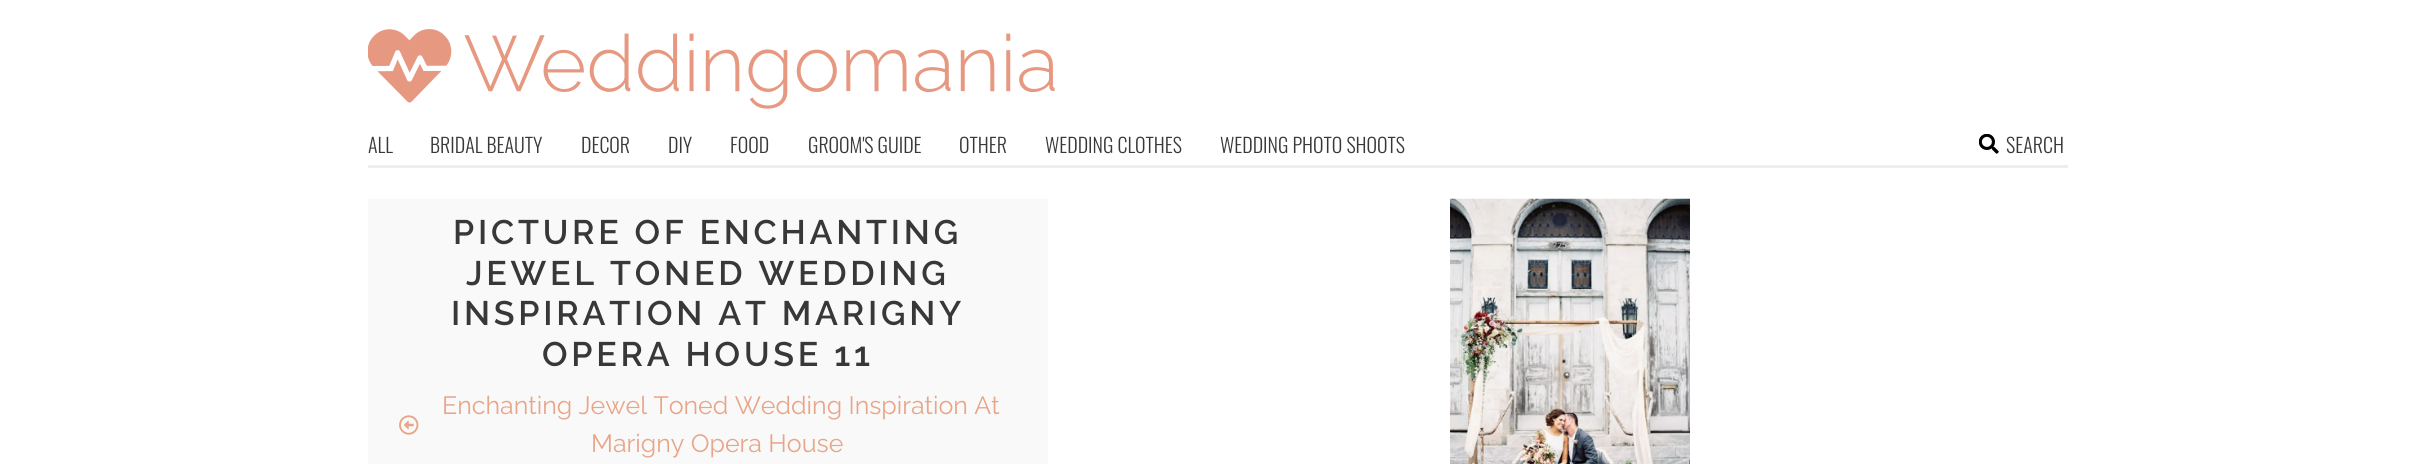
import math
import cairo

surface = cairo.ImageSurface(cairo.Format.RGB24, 2434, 464)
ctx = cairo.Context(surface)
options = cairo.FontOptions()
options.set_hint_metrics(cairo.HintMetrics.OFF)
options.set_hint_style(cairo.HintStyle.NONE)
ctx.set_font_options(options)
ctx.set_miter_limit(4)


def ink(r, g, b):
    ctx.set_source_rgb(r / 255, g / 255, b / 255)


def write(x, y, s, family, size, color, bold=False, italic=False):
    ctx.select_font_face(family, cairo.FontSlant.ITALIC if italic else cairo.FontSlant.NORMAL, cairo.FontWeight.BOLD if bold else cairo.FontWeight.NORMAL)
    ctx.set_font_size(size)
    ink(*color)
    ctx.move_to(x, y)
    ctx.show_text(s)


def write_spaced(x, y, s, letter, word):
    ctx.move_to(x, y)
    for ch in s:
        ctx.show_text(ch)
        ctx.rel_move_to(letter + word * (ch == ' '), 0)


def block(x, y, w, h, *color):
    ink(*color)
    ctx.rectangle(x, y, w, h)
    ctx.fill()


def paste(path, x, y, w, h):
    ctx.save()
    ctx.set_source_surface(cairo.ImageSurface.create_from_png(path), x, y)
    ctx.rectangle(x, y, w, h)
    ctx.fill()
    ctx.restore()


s1 = dict(family="Oswald Light", size=20, color=(56, 56, 56))
s2 = dict(family="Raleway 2 Thin", size=25, color=(232, 165, 136))

ink(255, 255, 255)
ctx.paint()
paste("pic1.png", 368, 29, 687, 80)
block(368, 165, 1700, 3, 238, 238, 238)
write(368, 153, "ALL", **s1)
write(430, 153, "BRIDAL BEAUTY", **s1)
write(581, 153, "DECOR", **s1)
write(668, 153, "DIY", **s1)
write(730, 153, "FOOD", **s1)
write(808, 153, "GROOM'S GUIDE", **s1)
write(959, 153, "OTHER", **s1)
write(1045, 153, "WEDDING CLOTHES", **s1)
write(1220, 153, "WEDDING PHOTO SHOOTS", **s1)
paste("pic2.png", 1979, 134, 20, 20)
write(2006, 153, "SEARCH", **s1)
block(368, 199, 680, 265, 249, 249, 249)
ctx.select_font_face("Raleway Thin")
ctx.set_font_size(34)
ink(56, 56, 56)
write_spaced(453, 244, "PICTURE OF ENCHANTING", 3.75, 0)
write_spaced(466, 285, "JEWEL TONED WEDDING", 3.75, 0)
write_spaced(451, 325, "INSPIRATION AT MARIGNY", 3.75, 0)
write_spaced(542, 366, "OPERA HOUSE 11", 3.75, 0)
write(442, 414, "Enchanting Jewel Toned Wedding Inspiration At", **s2)
paste("pic3.png", 399, 415, 20, 20)
write(591, 452, "Marigny Opera House", **s2)
paste("pic4.png", 1450, 198, 240, 266)
surface.write_to_png("screenshot.png")
